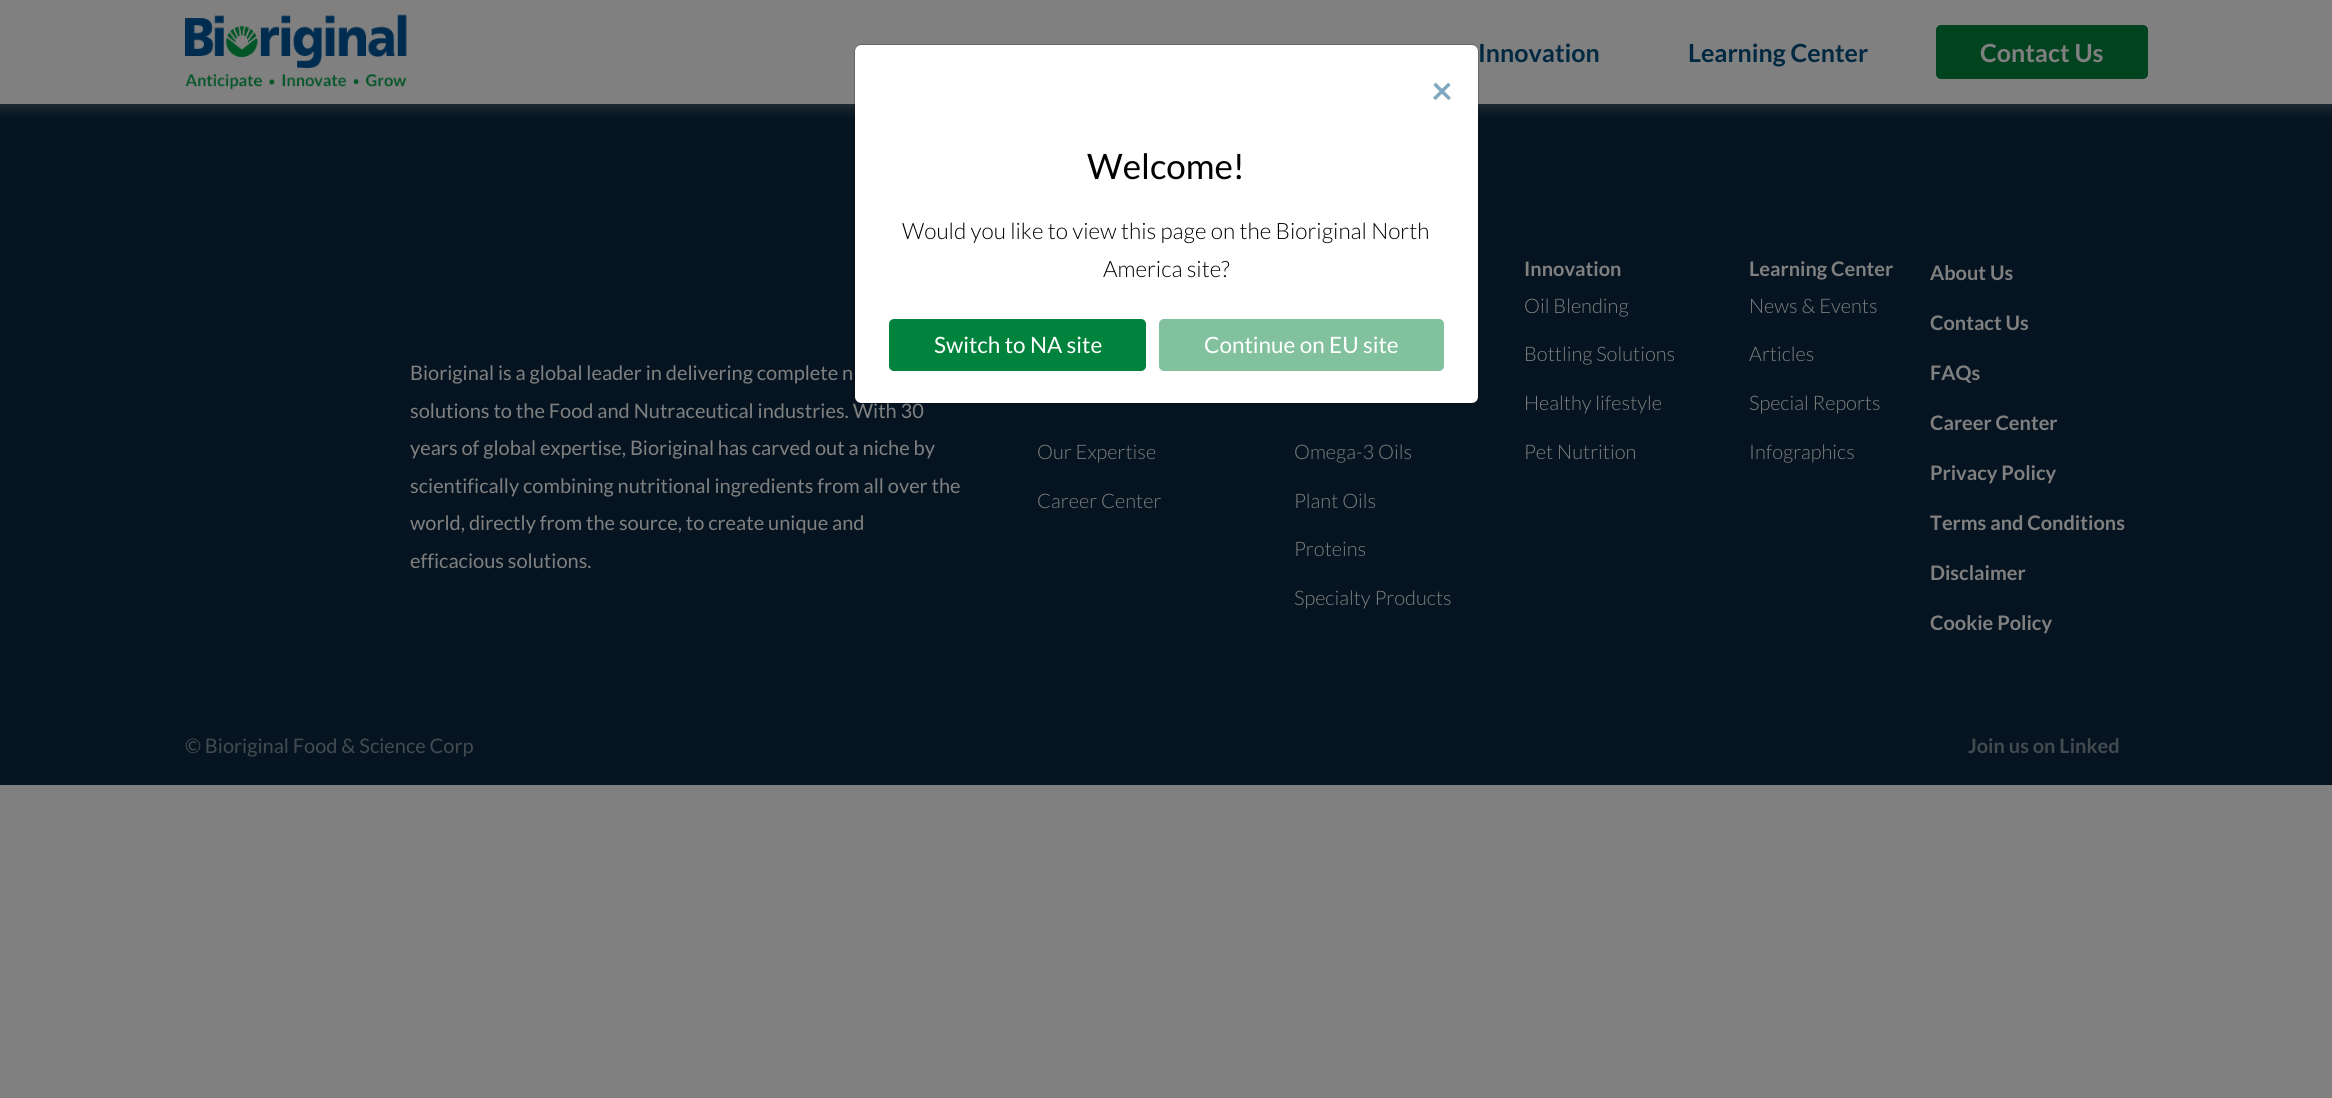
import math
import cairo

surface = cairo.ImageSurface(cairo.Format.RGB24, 2332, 1098)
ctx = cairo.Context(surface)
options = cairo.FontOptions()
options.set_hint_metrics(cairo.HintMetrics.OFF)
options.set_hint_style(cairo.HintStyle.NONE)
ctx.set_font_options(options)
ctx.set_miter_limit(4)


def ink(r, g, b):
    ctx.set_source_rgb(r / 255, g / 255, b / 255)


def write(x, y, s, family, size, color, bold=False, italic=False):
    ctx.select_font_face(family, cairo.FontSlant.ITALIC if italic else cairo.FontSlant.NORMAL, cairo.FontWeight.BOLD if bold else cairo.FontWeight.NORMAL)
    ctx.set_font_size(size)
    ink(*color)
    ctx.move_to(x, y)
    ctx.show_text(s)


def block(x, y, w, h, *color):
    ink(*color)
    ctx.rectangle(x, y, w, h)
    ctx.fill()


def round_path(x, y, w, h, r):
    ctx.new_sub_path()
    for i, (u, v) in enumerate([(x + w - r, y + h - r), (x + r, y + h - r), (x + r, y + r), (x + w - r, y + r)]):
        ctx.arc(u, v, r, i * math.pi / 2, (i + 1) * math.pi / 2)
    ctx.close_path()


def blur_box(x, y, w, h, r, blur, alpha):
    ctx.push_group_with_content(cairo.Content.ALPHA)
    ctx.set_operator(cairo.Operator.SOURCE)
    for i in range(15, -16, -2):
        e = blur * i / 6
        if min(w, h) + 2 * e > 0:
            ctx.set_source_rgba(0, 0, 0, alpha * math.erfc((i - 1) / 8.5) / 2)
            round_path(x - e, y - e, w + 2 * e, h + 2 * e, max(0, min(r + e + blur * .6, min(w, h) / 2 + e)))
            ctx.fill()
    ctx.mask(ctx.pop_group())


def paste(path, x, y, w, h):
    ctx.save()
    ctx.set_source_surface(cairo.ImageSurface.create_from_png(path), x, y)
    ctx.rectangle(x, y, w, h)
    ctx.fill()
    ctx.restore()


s1 = dict(family="Lato", size=25, color=(0, 40, 64), bold=True)
s2 = dict(family="Lato", size=25, color=(128, 128, 128), bold=True)
s3 = dict(family="Lato", size=20, color=(128, 128, 128))
s4 = dict(family="Lato", size=38, color=(128, 168, 192), bold=True)
s5 = dict(family="Lato", size=35, color=(0, 0, 0))
s6 = dict(family="Lato Light", size=22.5, color=(0, 0, 0))
s7 = dict(family="Lato", size=22.5, color=(255, 255, 255))
s8 = dict(family="Lato", size=20, color=(128, 128, 128), bold=True)
s9 = dict(family="Lato Light", size=20, color=(128, 128, 128))
s10 = dict(family="Lato", size=20, color=(67, 74, 80))
s11 = dict(family="Lato", size=20, color=(67, 74, 80), bold=True)

ink(128, 128, 128)
ctx.paint()
block(0, 104, 2332, 681, 5, 20, 32)
ink(102, 102, 102)
blur_box(-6, -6, 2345, 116, 0, 6, 0.3)
block(0, 0, 2332, 104, 128, 128, 128)
paste("pic1.png", 185, 14, 222, 76)
write(1478, 62, "Innovation", **s1)
write(1688, 62, "Learning Center", **s1)
ink(1, 66, 31)
round_path(1936, 25, 212, 54, 5)
ctx.fill()
write(1980, 62, "Contact Us", **s2)
ink(255, 255, 255)
round_path(855, 45, 623, 358, 6)
ctx.fill()
write(410, 418, "solutions to the Food and Nutraceutical industries. With 30", **s3)
round_path(854.5, 44.5, 624, 359, 7.5)
ctx.set_source_rgba(0, 0, 0, 0.2)
ctx.set_line_width(1)
ctx.stroke()
write(1431, 104, "×", **s4)
write(1087, 179, "Welcome!", **s5)
write(902, 239, "Would you like to view this page on the Bioriginal North", **s6)
write(1103, 277, "America site?", **s6)
ink(2, 131, 61)
round_path(889, 319, 257, 52, 5)
ctx.fill()
write(934, 353, "Switch to NA site", **s7)
ink(129, 193, 158)
round_path(1159, 319, 285, 52, 5)
ctx.fill()
write(1204, 353, "Continue on EU site", **s7)
write(410, 380, "Bioriginal is a global leader in delivering complete n", **s3)
write(410, 455, "years of global expertise, Bioriginal has carved out a niche by", **s3)
write(410, 493, "scientifically combining nutritional ingredients from all over the", **s3)
write(410, 530, "world, directly from the source, to create unique and", **s3)
write(410, 568, "efficacious solutions.", **s3)
write(1524, 276, "Innovation", **s8)
write(1524, 313, "Oil Blending", **s9)
write(1524, 361, "Bottling Solutions", **s9)
write(1524, 410, "Healthy lifestyle", **s9)
write(1524, 459, "Pet Nutrition", **s9)
write(1749, 276, "Learning Center", **s8)
write(1749, 313, "News & Events", **s9)
write(1749, 361, "Articles", **s9)
write(1749, 410, "Special Reports", **s9)
write(1749, 459, "Infographics", **s9)
write(1037, 459, "Our Expertise", **s9)
write(1037, 508, "Career Center", **s9)
write(1294, 459, "Omega-3 Oils", **s9)
write(1294, 508, "Plant Oils", **s9)
write(1294, 556, "Proteins", **s9)
write(1294, 605, "Specialty Products", **s9)
write(1930, 280, "About Us", **s8)
write(1930, 330, "Contact Us", **s8)
write(1930, 380, "FAQs", **s8)
write(1930, 430, "Career Center", **s8)
write(1930, 480, "Privacy Policy", **s8)
write(1930, 530, "Terms and Conditions", **s8)
write(1930, 580, "Disclaimer", **s8)
write(1930, 630, "Cookie Policy", **s8)
write(185, 753, "© Bioriginal Food & Science Corp", **s10)
write(1968, 753, "Join us on Linked", **s11)
surface.write_to_png("screenshot.png")
